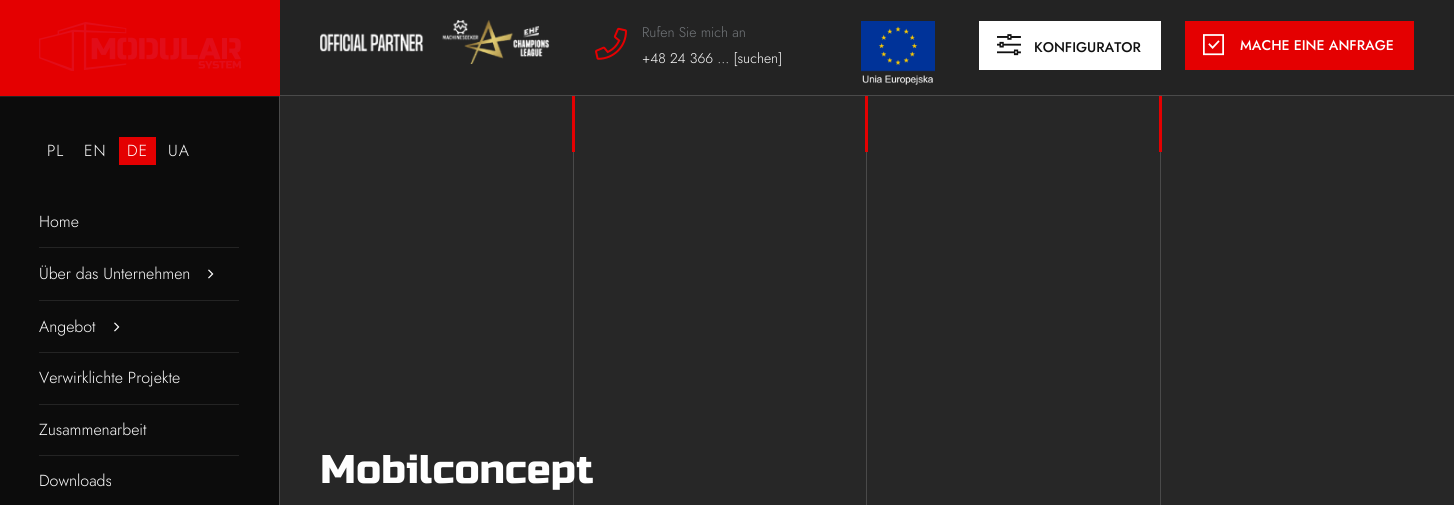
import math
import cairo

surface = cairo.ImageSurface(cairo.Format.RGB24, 1454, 505)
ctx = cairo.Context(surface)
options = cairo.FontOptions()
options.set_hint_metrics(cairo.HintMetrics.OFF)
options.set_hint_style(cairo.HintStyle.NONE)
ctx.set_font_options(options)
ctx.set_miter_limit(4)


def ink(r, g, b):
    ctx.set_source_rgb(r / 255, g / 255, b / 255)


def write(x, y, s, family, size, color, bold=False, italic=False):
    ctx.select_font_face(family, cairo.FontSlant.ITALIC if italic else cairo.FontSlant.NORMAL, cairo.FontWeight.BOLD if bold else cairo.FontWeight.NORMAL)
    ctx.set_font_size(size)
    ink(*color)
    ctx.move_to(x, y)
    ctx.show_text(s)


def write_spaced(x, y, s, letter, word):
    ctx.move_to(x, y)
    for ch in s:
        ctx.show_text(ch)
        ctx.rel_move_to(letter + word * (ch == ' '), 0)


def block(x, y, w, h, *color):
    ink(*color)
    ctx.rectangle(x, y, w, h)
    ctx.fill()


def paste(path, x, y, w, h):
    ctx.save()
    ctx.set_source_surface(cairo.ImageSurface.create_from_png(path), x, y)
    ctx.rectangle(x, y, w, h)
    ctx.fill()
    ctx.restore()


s1 = dict(family="Jost Light", size=16, color=(255, 255, 255))
s2 = dict(family="Jost Light", size=14, color=(116, 120, 124))
s3 = dict(family="Jost Light", size=14, color=(255, 255, 255))
s4 = dict(family="Jost Medium", size=14, color=(17, 17, 17))
s5 = dict(family="Jost Medium", size=14, color=(255, 255, 255))
s6 = dict(family="Russo One", size=40, color=(255, 255, 255))

ink(35, 35, 35)
ctx.paint()
block(0, 97, 279, 408, 12, 12, 12)
block(0, 0, 280, 96, 228, 0, 1)
paste("pic1.png", 39, 22, 202, 49)
block(279, 96, 1, 409, 74, 74, 74)
ctx.select_font_face("Jost Light")
ctx.set_font_size(16)
ink(255, 255, 255)
write_spaced(47, 156, "PL", 1, 0)
write_spaced(84, 156, "EN", 1, 0)
block(119, 137, 37, 28, 228, 0, 1)
ink(255, 255, 255)
write_spaced(127, 156, "DE", 1, 0)
write_spaced(168, 156, "UA", 1, 0)
block(39, 247, 200, 1, 36, 36, 36)
write(39, 227, "Home", **s1)
block(39, 300, 200, 1, 36, 36, 36)
write(39, 279, "Über das Unternehmen", **s1)
paste("pic2.png", 208, 269, 6, 10)
block(39, 352, 200, 1, 36, 36, 36)
write(39, 332, "Angebot", **s1)
paste("pic2.png", 114, 322, 6, 10)
block(39, 404, 200, 1, 36, 36, 36)
write(39, 383, "Verwirklichte Projekte", **s1)
block(39, 455, 200, 1, 36, 36, 36)
write(39, 435, "Zusammenarbeit", **s1)
write(39, 486, "Downloads", **s1)
block(280, 95, 1174, 1, 74, 74, 74)
paste("pic3.png", 320, 20, 230, 44)
paste("pic4.png", 595, 27, 32, 33)
write(642, 37, "Rufen Sie mich an", **s2)
write(642, 63, "+48 24 366 ... [suchen]", **s3)
paste("pic5.png", 861, 21, 74, 64)
block(979, 21, 182, 49, 255, 255, 255)
paste("pic6.png", 997, 34, 24, 22)
write(1034, 52, "KONFIGURATOR", **s4)
block(1185, 21, 229, 49, 228, 0, 1)
paste("pic7.png", 1203, 34, 21, 22)
write(1240, 50, "MACHE EINE ANFRAGE", **s5)
block(280, 96, 1174, 409, 39, 39, 39)
block(573, 152, 1, 353, 74, 74, 74)
write(320, 483, "Mobilconcept", **s6)
block(572, 96, 3, 56, 228, 0, 1)
block(866, 152, 1, 353, 74, 74, 74)
block(865, 96, 3, 56, 228, 0, 1)
block(1160, 152, 1, 353, 74, 74, 74)
block(1159, 96, 3, 56, 228, 0, 1)
surface.write_to_png("screenshot.png")
